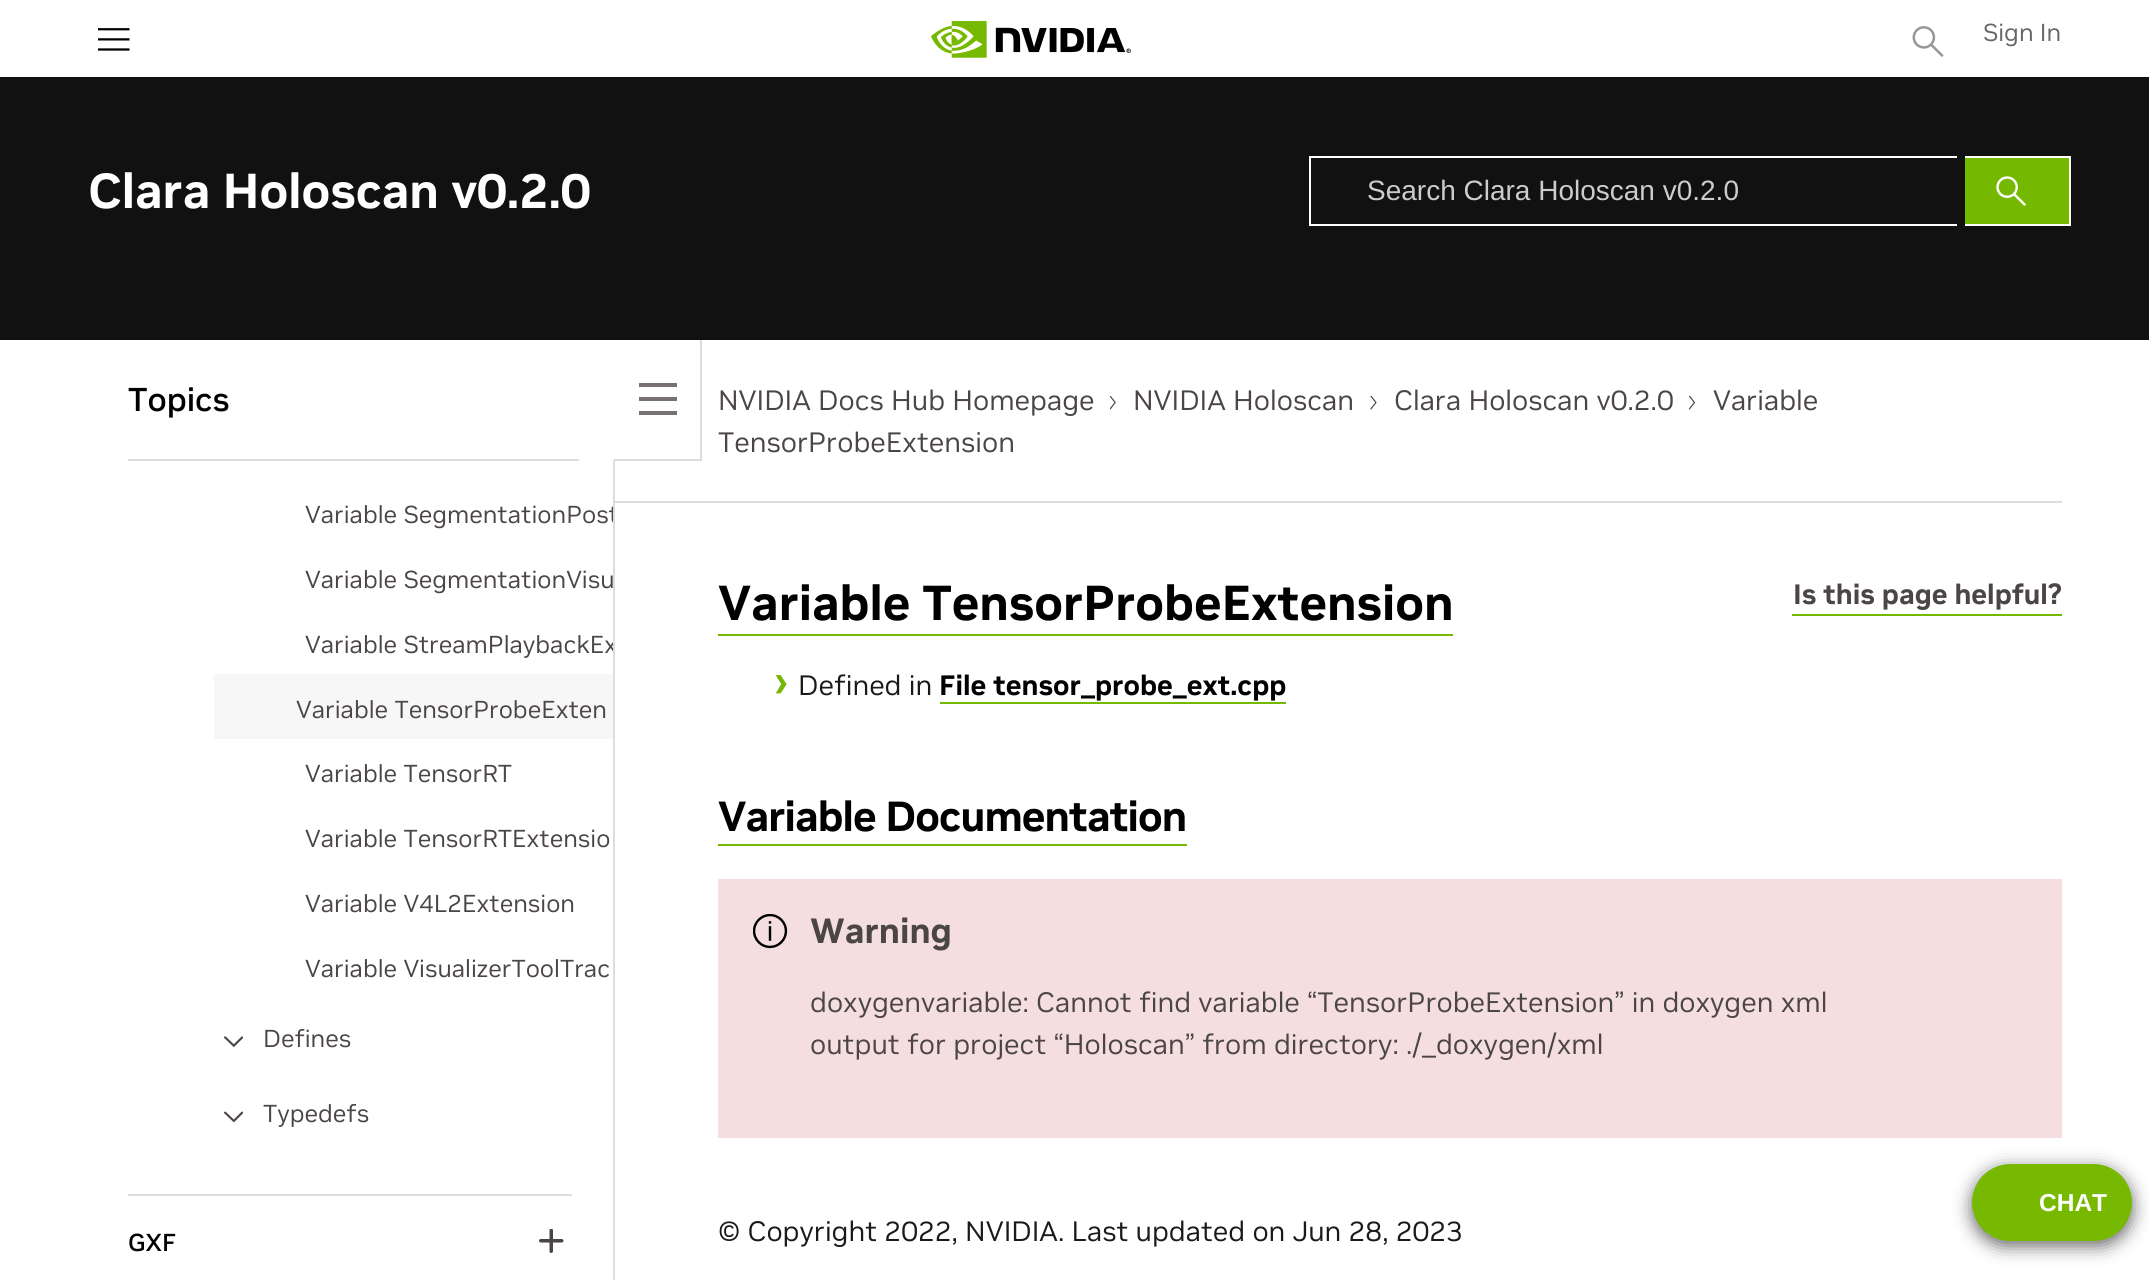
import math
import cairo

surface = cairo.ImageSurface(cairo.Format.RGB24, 2149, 1280)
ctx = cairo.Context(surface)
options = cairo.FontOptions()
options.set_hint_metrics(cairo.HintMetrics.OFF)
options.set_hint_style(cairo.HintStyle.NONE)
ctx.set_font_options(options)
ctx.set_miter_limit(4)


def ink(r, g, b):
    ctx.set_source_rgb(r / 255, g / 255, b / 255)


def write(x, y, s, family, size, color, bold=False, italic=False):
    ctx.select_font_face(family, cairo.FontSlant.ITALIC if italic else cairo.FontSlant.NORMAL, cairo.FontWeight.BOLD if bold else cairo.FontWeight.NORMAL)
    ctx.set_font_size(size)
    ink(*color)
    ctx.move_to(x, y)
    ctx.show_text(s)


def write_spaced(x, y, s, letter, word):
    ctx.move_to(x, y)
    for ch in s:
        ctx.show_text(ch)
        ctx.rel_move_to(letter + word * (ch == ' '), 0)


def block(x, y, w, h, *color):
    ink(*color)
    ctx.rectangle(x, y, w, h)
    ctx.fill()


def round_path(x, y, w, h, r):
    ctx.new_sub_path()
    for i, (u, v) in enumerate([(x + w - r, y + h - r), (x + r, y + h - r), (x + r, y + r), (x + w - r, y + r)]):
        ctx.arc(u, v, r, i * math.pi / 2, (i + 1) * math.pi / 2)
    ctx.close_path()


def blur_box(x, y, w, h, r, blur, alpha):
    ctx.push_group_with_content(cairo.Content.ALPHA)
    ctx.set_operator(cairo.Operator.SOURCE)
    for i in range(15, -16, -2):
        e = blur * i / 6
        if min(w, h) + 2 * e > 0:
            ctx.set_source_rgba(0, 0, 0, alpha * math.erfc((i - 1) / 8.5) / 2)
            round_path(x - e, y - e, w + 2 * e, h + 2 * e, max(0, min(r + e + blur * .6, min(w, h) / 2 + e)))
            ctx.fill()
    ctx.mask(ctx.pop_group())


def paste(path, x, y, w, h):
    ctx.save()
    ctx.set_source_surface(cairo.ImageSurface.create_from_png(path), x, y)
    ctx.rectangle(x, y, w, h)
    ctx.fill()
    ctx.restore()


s1 = dict(family="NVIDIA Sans", size=24.5, color=(102, 102, 102))
s2 = dict(family="NVIDIA Sans", size=49, color=(255, 255, 255), bold=True)
s3 = dict(family="Liberation Sans", size=28, color=(204, 204, 204))
s4 = dict(family="NVIDIA Sans Medium", size=33, color=(0, 0, 0))
s5 = dict(family="NVIDIA Sans", size=24.5, color=(75, 69, 69))
s6 = dict(family="NVIDIA Sans Medium", size=24.5, color=(0, 0, 0))
s7 = dict(family="NVIDIA Sans", size=28, color=(75, 69, 69))
s8 = dict(family="NVIDIA Sans", size=49, color=(0, 0, 0), bold=True)
s9 = dict(family="NVIDIA Sans", size=28, color=(75, 69, 69), bold=True)
s10 = dict(family="NVIDIA Sans Medium", size=42, color=(116, 185, 0))
s11 = dict(family="NVIDIA Sans", size=28, color=(26, 26, 26))
s12 = dict(family="NVIDIA Sans", size=28, color=(0, 0, 0), bold=True)
s13 = dict(family="NVIDIA Sans", size=35, color=(75, 69, 69), bold=True)
s14 = dict(family="Liberation Sans", size=24.5, color=(255, 255, 255), bold=True)

ink(255, 255, 255)
ctx.paint()
paste("pic1.png", 98, 28, 32, 23)
paste("pic2.png", 931, 21, 200, 37)
paste("pic3.png", 1912, 26, 32, 31)
write(1983, 41, "Sign In", **s1)
block(0, 77, 2149, 263, 17, 17, 17)
write(88, 208, "Clara Holoscan v0.2.0", **s2)
block(1309, 156, 648, 2, 255, 255, 255)
block(1309, 224, 648, 2, 255, 255, 255)
block(1309, 156, 2, 70, 255, 255, 255)
write(1367, 200, "Search Clara Holoscan v0.2.0", **s3)
block(1965, 158, 104, 66, 116, 185, 0)
block(1965, 156, 105, 2, 255, 255, 255)
block(2069, 156, 2, 70, 255, 255, 255)
block(1965, 224, 105, 2, 255, 255, 255)
paste("pic4.png", 1996, 176, 30, 30)
write(128, 411, "Topics", **s4)
block(128, 459, 451, 2, 221, 221, 221)
block(700, 340, 2, 120, 221, 221, 221)
block(613, 460, 2, 820, 221, 221, 221)
block(614, 459, 88, 2, 221, 221, 221)
block(639, 383, 38, 4, 120, 113, 113)
block(639, 397, 38, 4, 120, 113, 113)
block(639, 411, 38, 4, 120, 113, 113)
ctx.save()
ctx.rectangle(88, 460, 525, 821)
ctx.clip()
write(305, 523, "Variable SegmentationPost", **s5)
ctx.restore()
write(305, 588, "Variable SegmentationVisu", **s5)
ctx.save()
ctx.rectangle(88, 460, 525, 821)
ctx.clip()
write(305, 653, "Variable StreamPlaybackEx", **s5)
ctx.restore()
block(214, 674, 399, 65, 247, 247, 247)
write(296, 718, "Variable TensorProbeExten", **s5)
write(305, 782, "Variable TensorRT", **s5)
write(305, 847, "Variable TensorRTExtensio", **s5)
write(305, 912, "Variable V4L2Extension", **s5)
write(305, 977, "Variable VisualizerToolTrac", **s5)
paste("pic5.png", 224, 1036, 19, 12)
write(263, 1047, "Defines", **s5)
paste("pic6.png", 224, 1111, 19, 12)
write(263, 1122, "Typedefs", **s5)
block(128, 1194, 444, 2, 221, 221, 221)
write(128, 1251, "GXF", **s6)
paste("pic7.png", 539, 1229, 25, 24)
write(718, 410, "NVIDIA Docs Hub Homepage", **s7)
paste("pic8.png", 1110, 396, 6, 14)
write(1133, 410, "NVIDIA Holoscan", **s7)
paste("pic9.png", 1370, 396, 7, 14)
write(1394, 410, "Clara Holoscan v0.2.0", **s7)
paste("pic10.png", 1689, 396, 6, 14)
write(1713, 410, "Variable", **s7)
write(718, 452, "TensorProbeExtension", **s7)
block(615, 501, 1447, 2, 221, 221, 221)
write(718, 620, "Variable TensorProbeExtension", **s8)
block(718, 634, 735, 2, 116, 185, 0)
block(1792, 614, 270, 2, 116, 185, 0)
write(1793, 604, "Is this page helpful?", **s9)
write(774, 695, "›", **s10)
write(798, 695, "Defined in", **s11)
write(939, 695, "File tensor_probe_ext.cpp", **s12)
block(940, 702, 346, 2, 116, 185, 0)
ctx.set_font_size(42)
ink(0, 0, 0)
write_spaced(718, 831, "Variable Documentation", -0.9, 0)
block(718, 844, 469, 2, 116, 185, 0)
block(718, 879, 1344, 259, 244, 222, 223)
paste("pic11.png", 753, 914, 35, 35)
write(810, 943, "Warning", **s13)
write(810, 1012, "doxygenvariable: Cannot find variable “TensorProbeExtension” in doxygen xml", **s7)
write(810, 1054, "output for project “Holoscan” from directory: ./_doxygen/xml", **s7)
write(718, 1241, "© Copyright 2022, NVIDIA. Last updated on Jun 28, 2023", **s11)
ink(102, 102, 102)
blur_box(1972, 1169, 160, 77, 38.5, 9, 1)
ink(118, 185, 0)
round_path(1972, 1164, 160, 77, 38.5)
ctx.fill()
write(2039, 1211, "CHAT", **s14)
surface.write_to_png("screenshot.png")
